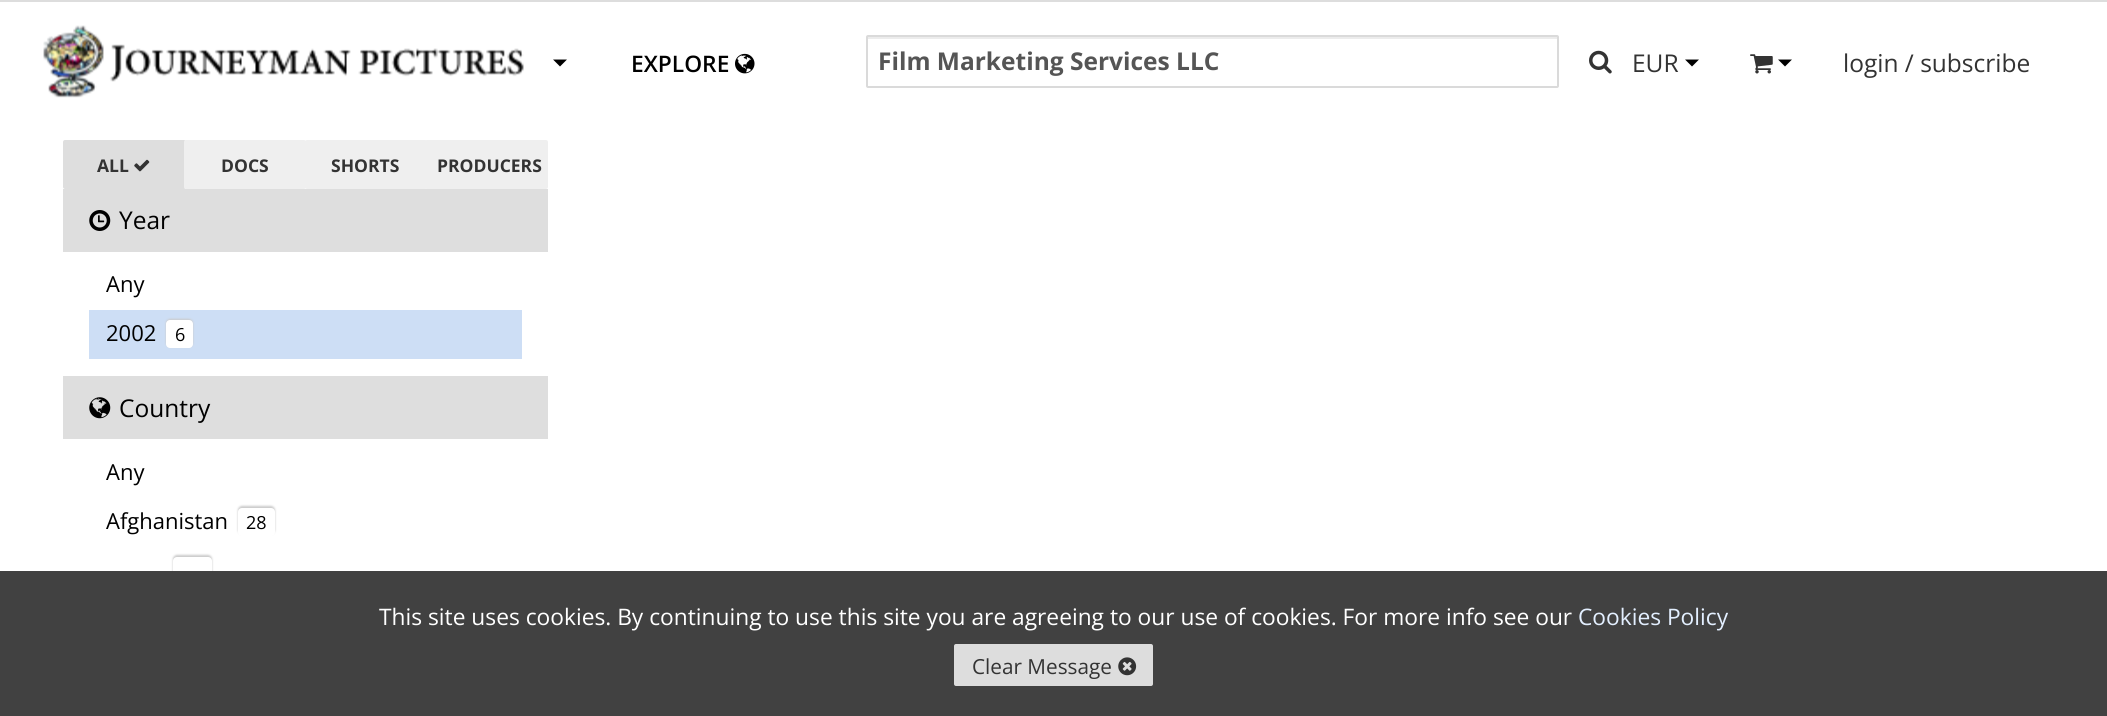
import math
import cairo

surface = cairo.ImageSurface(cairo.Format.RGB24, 2107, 716)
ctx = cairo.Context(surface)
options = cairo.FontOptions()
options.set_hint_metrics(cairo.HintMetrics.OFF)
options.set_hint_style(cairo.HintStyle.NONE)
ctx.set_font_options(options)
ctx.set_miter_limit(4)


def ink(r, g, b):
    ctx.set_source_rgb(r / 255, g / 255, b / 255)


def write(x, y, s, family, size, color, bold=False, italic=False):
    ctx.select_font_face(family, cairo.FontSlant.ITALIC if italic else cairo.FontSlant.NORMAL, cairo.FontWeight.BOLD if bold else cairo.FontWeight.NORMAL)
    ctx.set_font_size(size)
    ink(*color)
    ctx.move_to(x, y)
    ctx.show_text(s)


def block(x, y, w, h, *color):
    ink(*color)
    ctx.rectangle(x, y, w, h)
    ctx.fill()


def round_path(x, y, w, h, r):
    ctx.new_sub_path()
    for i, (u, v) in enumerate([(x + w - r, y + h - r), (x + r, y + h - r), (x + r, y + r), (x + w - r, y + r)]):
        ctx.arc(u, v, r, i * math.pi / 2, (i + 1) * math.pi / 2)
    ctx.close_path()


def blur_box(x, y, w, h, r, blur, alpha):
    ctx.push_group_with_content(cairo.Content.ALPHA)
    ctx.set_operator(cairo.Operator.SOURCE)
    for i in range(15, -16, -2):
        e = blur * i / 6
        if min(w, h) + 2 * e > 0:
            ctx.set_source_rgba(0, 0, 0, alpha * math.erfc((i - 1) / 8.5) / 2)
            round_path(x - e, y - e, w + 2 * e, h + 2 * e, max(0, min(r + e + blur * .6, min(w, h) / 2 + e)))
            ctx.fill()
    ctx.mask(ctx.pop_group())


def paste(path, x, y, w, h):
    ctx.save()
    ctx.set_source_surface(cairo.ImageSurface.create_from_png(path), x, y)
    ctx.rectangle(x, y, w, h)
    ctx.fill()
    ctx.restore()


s1 = dict(family="Open Sans SemiBold", size=22.75, color=(0, 0, 0))
s2 = dict(family="Open Sans", size=24.5, color=(85, 85, 85), bold=True)
s3 = dict(family="Open Sans", size=24.5, color=(51, 51, 51))
s4 = dict(family="Open Sans", size=17.5, color=(51, 51, 51), bold=True)
s5 = dict(family="Open Sans", size=24.5, color=(0, 0, 0))
s6 = dict(family="Open Sans", size=22, color=(0, 0, 0))
s7 = dict(family="Open Sans", size=18, color=(0, 0, 0))
s8 = dict(family="Open Sans", size=22.75, color=(255, 255, 255))
s9 = dict(family="Open Sans", size=22.75, color=(227, 239, 255))
s10 = dict(family="Open Sans", size=20.75, color=(51, 51, 51))

ink(255, 255, 255)
ctx.paint()
block(0, 0, 2107, 2, 221, 221, 221)
paste("pic1.png", 43, 25, 481, 73)
ink(0, 0, 0)
ctx.new_path()
ctx.move_to(553, 59.5)
ctx.line_to(567, 59.5)
ctx.line_to(560, 66.5)
ctx.close_path()
ctx.fill()
write(631, 72, "EXPLORE", **s1)
paste("pic2.png", 735, 53, 20, 21)
block(868, 37, 690, 2, 236, 236, 236)
round_path(867, 36, 691, 51, 1)
ink(218, 218, 218)
ctx.stroke()
write(878, 70, "Film Marketing Services LLC", **s2)
paste("pic3.png", 1589, 50, 23, 24)
write(1632, 72, "EUR", **s3)
ink(0, 0, 0)
ctx.new_path()
ctx.move_to(1685, 59.5)
ctx.line_to(1699, 59.5)
ctx.line_to(1692, 66.5)
ctx.close_path()
ctx.fill()
paste("pic4.png", 1750, 54, 23, 20)
ctx.new_path()
ctx.move_to(1778, 59.5)
ctx.line_to(1792, 59.5)
ctx.line_to(1785, 66.5)
ctx.close_path()
ctx.fill()
write(1843, 72, "login / subscribe", **s3)
ink(222, 222, 222)
round_path(63, 140, 123, 49, 2)
ctx.fill()
write(97, 172, "ALL", **s4)
paste("pic5.png", 134, 159, 16, 13)
ink(239, 239, 239)
round_path(184, 140, 122, 49, 2)
ctx.fill()
write(221, 172, "DOCS", **s4)
ink(239, 239, 239)
round_path(305, 140, 122, 49, 2)
ctx.fill()
write(331, 172, "SHORTS", **s4)
ink(239, 239, 239)
round_path(425, 140, 123, 49, 2)
ctx.fill()
write(437, 172, "PRODUCERS", **s4)
block(63, 189, 485, 63, 222, 222, 222)
paste("pic6.png", 89, 210, 22, 21)
write(119, 229, "Year", **s5)
write(106, 292, "Any", **s6)
block(89, 310, 433, 49, 205, 222, 245)
write(106, 341, "2002", **s6)
ink(203, 203, 203)
blur_box(166, 319, 27, 28, 4, 1, 1)
ink(255, 255, 255)
round_path(166, 320, 27, 28, 4)
ctx.fill()
write(175, 341, "6", **s7)
block(63, 376, 485, 63, 222, 222, 222)
paste("pic7.png", 89, 397, 22, 22)
write(119, 417, "Country", **s5)
write(106, 480, "Any", **s6)
write(106, 529, "Afghanistan", **s6)
ink(203, 203, 203)
blur_box(238, 506, 37, 28, 4, 1, 1)
ink(255, 255, 255)
round_path(238, 508, 37, 28, 4)
ctx.fill()
write(246, 529, "28", **s7)
ink(203, 203, 203)
blur_box(173, 555, 39, 28, 4, 1, 1)
ink(255, 255, 255)
round_path(173, 557, 39, 28, 4)
ctx.fill()
block(0, 571, 2107, 145, 65, 65, 65)
write(379, 625, "This site uses cookies. By continuing to use this site you are agreeing to our use of cookies. For more info see our", **s8)
write(1578, 625, "Cookies Policy", **s9)
ink(221, 221, 221)
round_path(954, 644, 199, 42, 2)
ctx.fill()
write(972, 674, "Clear Message", **s10)
paste("pic8.png", 1118, 657, 19, 19)
surface.write_to_png("screenshot.png")
